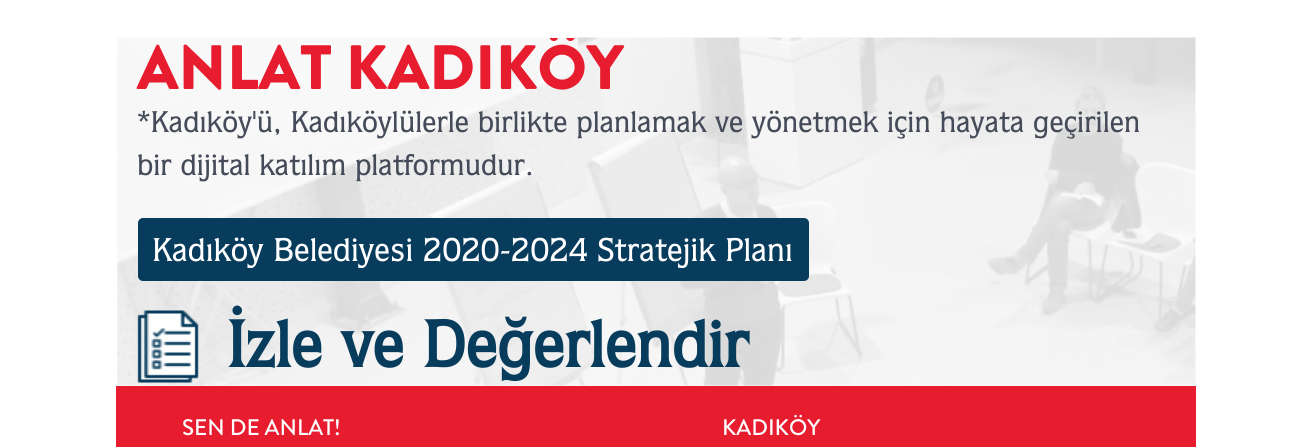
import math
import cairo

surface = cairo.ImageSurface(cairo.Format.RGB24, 1309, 447)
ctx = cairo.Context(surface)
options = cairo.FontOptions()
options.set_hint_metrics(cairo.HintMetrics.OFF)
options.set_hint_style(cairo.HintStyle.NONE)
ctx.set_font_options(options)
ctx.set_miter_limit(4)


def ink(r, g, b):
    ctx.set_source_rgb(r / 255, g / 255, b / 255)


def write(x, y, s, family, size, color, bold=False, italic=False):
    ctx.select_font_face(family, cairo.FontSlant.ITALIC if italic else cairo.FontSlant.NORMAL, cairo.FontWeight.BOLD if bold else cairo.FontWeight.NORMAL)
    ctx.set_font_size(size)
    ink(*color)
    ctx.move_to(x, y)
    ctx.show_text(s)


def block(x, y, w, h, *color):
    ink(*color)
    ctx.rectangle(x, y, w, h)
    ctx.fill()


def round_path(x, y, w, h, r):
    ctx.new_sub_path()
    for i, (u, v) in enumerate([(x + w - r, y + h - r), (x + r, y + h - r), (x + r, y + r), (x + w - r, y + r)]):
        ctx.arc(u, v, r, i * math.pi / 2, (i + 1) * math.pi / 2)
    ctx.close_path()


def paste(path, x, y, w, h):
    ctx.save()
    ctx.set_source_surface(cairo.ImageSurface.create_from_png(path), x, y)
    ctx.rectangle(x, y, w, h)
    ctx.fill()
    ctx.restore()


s1 = dict(family="Brandon Grotesque Black", size=62.5, color=(231, 29, 47))
s2 = dict(family="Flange", size=30, color=(69, 75, 89))
s3 = dict(family="Flange", size=33, color=(255, 255, 255))
s4 = dict(family="Flange", size=66, color=(7, 60, 92), bold=True)
s5 = dict(family="Brandon Grotesque Medium", size=22.5, color=(255, 255, 255))

ink(255, 255, 255)
ctx.paint()
paste("pic1.png", 117, 37, 1079, 349)
ctx.save()
ctx.rectangle(116, 38, 1080, 348)
ctx.clip()
write(137, 89, "ANLAT KADIKÖY", **s1)
ctx.restore()
write(137, 132, "*Kadıköy'ü, Kadıköylülerle birlikte planlamak ve yönetmek için hayata geçirilen", **s2)
write(137, 175, "bir dijital katılım platformudur.", **s2)
ink(7, 60, 92)
round_path(138, 218, 671, 63, 5)
ctx.fill()
write(152, 261, "Kadıköy Belediyesi 2020-2024 Stratejik Planı", **s3)
paste("pic2.png", 137, 310, 62, 73)
write(227, 367, "İzle ve Değerlendir", **s4)
block(116, 386, 1080, 61, 231, 29, 47)
write(182, 435, "SEN DE ANLAT!", **s5)
write(722, 435, "KADIKÖY", **s5)
surface.write_to_png("screenshot.png")
